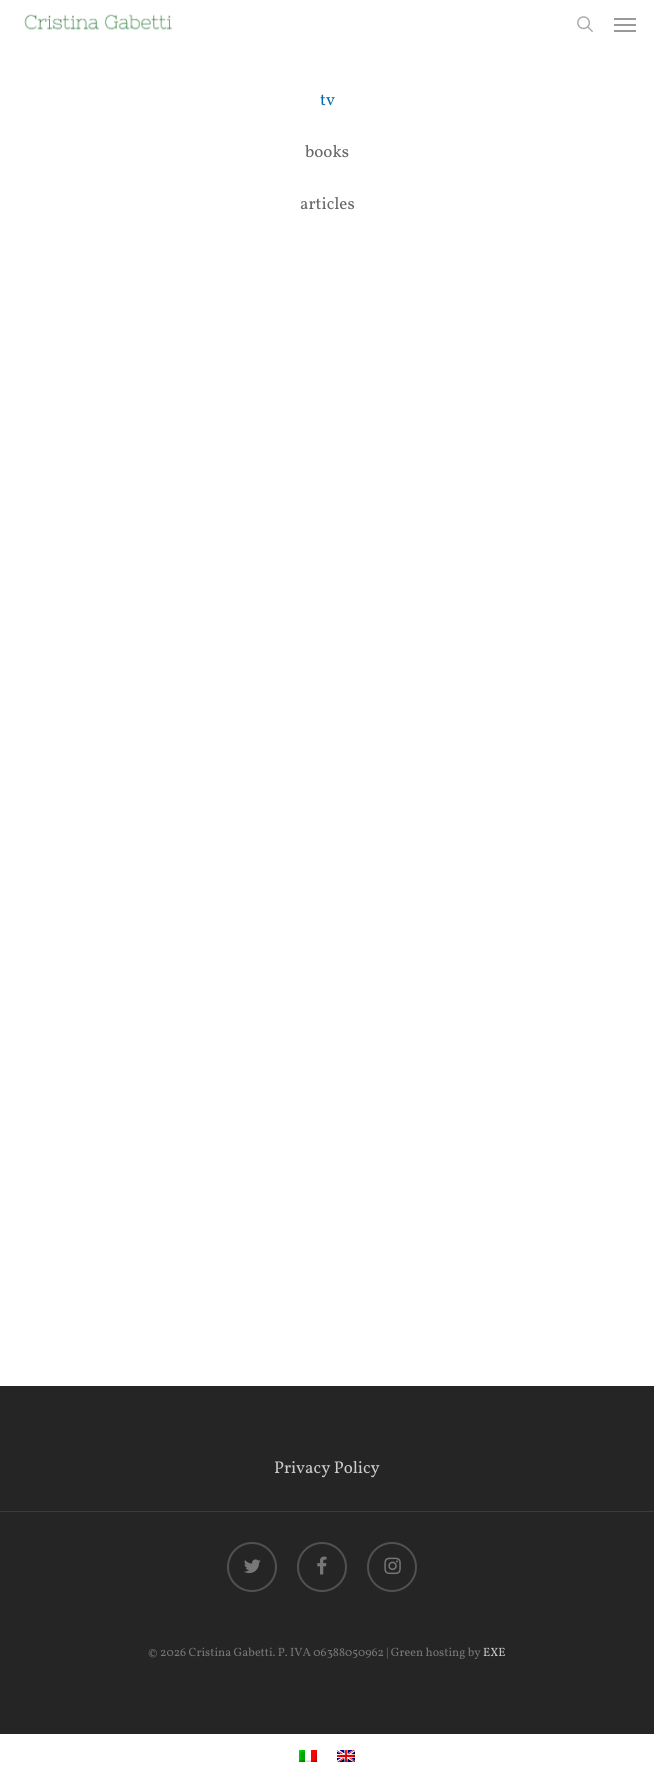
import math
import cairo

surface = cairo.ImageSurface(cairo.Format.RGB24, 654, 1778)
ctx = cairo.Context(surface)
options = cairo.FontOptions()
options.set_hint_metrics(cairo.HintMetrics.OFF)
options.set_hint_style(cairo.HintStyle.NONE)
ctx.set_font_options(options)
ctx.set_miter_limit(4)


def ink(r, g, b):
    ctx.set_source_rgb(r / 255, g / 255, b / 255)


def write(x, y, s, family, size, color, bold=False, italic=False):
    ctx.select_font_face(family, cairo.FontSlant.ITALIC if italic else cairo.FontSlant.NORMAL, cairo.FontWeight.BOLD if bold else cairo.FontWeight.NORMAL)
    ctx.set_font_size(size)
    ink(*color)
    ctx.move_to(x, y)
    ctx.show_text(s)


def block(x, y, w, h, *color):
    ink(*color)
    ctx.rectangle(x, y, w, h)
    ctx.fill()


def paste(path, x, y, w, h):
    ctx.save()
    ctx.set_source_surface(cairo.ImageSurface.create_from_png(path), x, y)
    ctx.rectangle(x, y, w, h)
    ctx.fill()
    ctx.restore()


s1 = dict(family="Vollkorn", size=17, color=(4, 106, 170))
s2 = dict(family="Vollkorn", size=17, color=(103, 103, 103))
s3 = dict(family="Vollkorn", size=17, color=(204, 204, 204))
s4 = dict(family="Vollkorn", size=12, color=(119, 119, 119))
s5 = dict(family="Vollkorn", size=12, color=(204, 204, 204))

ink(255, 255, 255)
ctx.paint()
paste("pic1.png", 24, 14, 148, 16)
paste("pic2.png", 577, 16, 16, 16)
block(614, 18, 22, 2, 153, 153, 153)
block(614, 30, 22, 2, 153, 153, 153)
block(614, 24, 22, 2, 153, 153, 153)
write(320, 105, "tv", **s1)
write(305, 157, "books", **s2)
write(300, 209, "articles", **s2)
block(0, 1386, 654, 348, 37, 37, 37)
write(274, 1473, "Privacy Policy", **s3)
block(0, 1511, 654, 1, 59, 59, 59)
paste("pic3.png", 244, 1559, 17, 15)
ctx.arc(252, 1567, 24, 0, 2 * math.pi)
ink(81, 81, 81)
ctx.stroke()
paste("pic4.png", 317, 1556, 10, 19)
ctx.arc(322, 1567, 24, 0, 2 * math.pi)
ctx.stroke()
paste("pic5.png", 384, 1557, 17, 18)
ctx.arc(392, 1567, 24, 0, 2 * math.pi)
ctx.stroke()
write(148, 1656, "© 2026 Cristina Gabetti. P. IVA 06388050962 | Green hosting by", **s4)
write(483, 1656, "EXE", **s5)
paste("pic6.png", 299, 1750, 18, 12)
paste("pic7.png", 337, 1750, 18, 12)
surface.write_to_png("screenshot.png")
